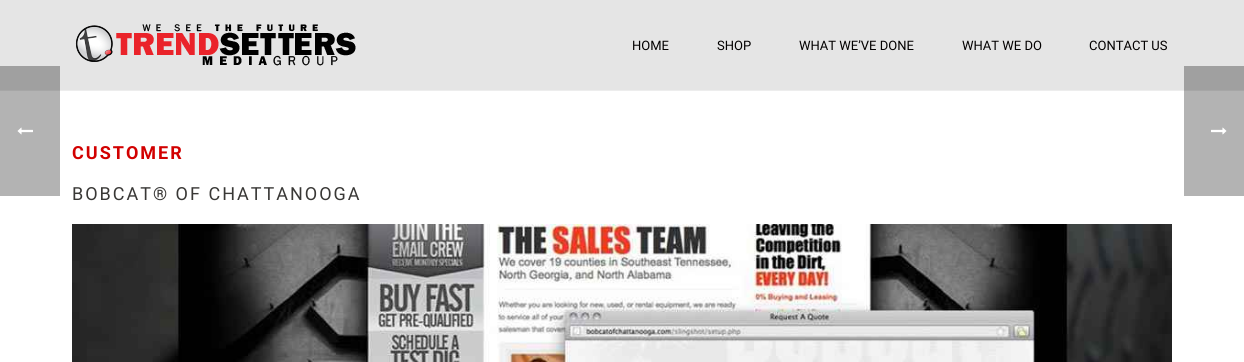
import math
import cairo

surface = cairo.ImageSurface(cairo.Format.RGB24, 1244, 362)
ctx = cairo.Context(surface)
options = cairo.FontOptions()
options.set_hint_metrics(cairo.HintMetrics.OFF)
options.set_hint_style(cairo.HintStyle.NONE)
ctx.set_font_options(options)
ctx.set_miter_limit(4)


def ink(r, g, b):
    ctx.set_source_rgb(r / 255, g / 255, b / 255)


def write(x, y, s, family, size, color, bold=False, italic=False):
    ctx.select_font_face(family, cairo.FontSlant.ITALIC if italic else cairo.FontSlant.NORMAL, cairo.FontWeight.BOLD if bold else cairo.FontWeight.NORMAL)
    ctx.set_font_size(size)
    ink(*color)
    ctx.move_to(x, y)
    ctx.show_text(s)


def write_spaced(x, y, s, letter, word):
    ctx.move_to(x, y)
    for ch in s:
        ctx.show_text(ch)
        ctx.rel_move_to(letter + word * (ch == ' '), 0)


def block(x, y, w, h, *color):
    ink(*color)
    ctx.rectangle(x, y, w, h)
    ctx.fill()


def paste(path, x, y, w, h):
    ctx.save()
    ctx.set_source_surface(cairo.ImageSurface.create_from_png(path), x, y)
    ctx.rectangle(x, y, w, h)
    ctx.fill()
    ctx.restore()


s1 = dict(family="Roboto", size=13, color=(2, 0, 0))

ink(255, 255, 255)
ctx.paint()
block(1184, 91, 60, 105, 179, 179, 179)
block(0, 91, 60, 105, 179, 179, 179)
block(0, 0, 1244, 90, 229, 229, 229)
block(1184, 66, 60, 24, 160, 160, 160)
block(0, 66, 60, 24, 160, 160, 160)
block(60, 90, 1124, 1, 237, 237, 237)
block(1184, 90, 60, 1, 166, 166, 166)
block(0, 90, 60, 1, 166, 166, 166)
paste("pic1.png", 75, 24, 281, 42)
write(632, 50, "HOME", **s1)
write(717, 50, "SHOP", **s1)
write(799, 50, "WHAT WE’VE DONE", **s1)
write(962, 50, "WHAT WE DO", **s1)
write(1089, 50, "CONTACT US", **s1)
ctx.select_font_face("Roboto", cairo.FontSlant.NORMAL, cairo.FontWeight.BOLD)
ctx.set_font_size(18)
ink(210, 0, 0)
write_spaced(72, 159, "CUSTOMER", 2, 0)
ctx.select_font_face("Roboto")
ink(57, 56, 54)
write_spaced(72, 200, "BOBCAT® OF CHATTANOOGA", 2, 0)
paste("pic2.png", 72, 224, 1100, 138)
paste("pic3.png", 17, 127, 16, 8)
paste("pic4.png", 1211, 127, 16, 8)
surface.write_to_png("screenshot.png")
